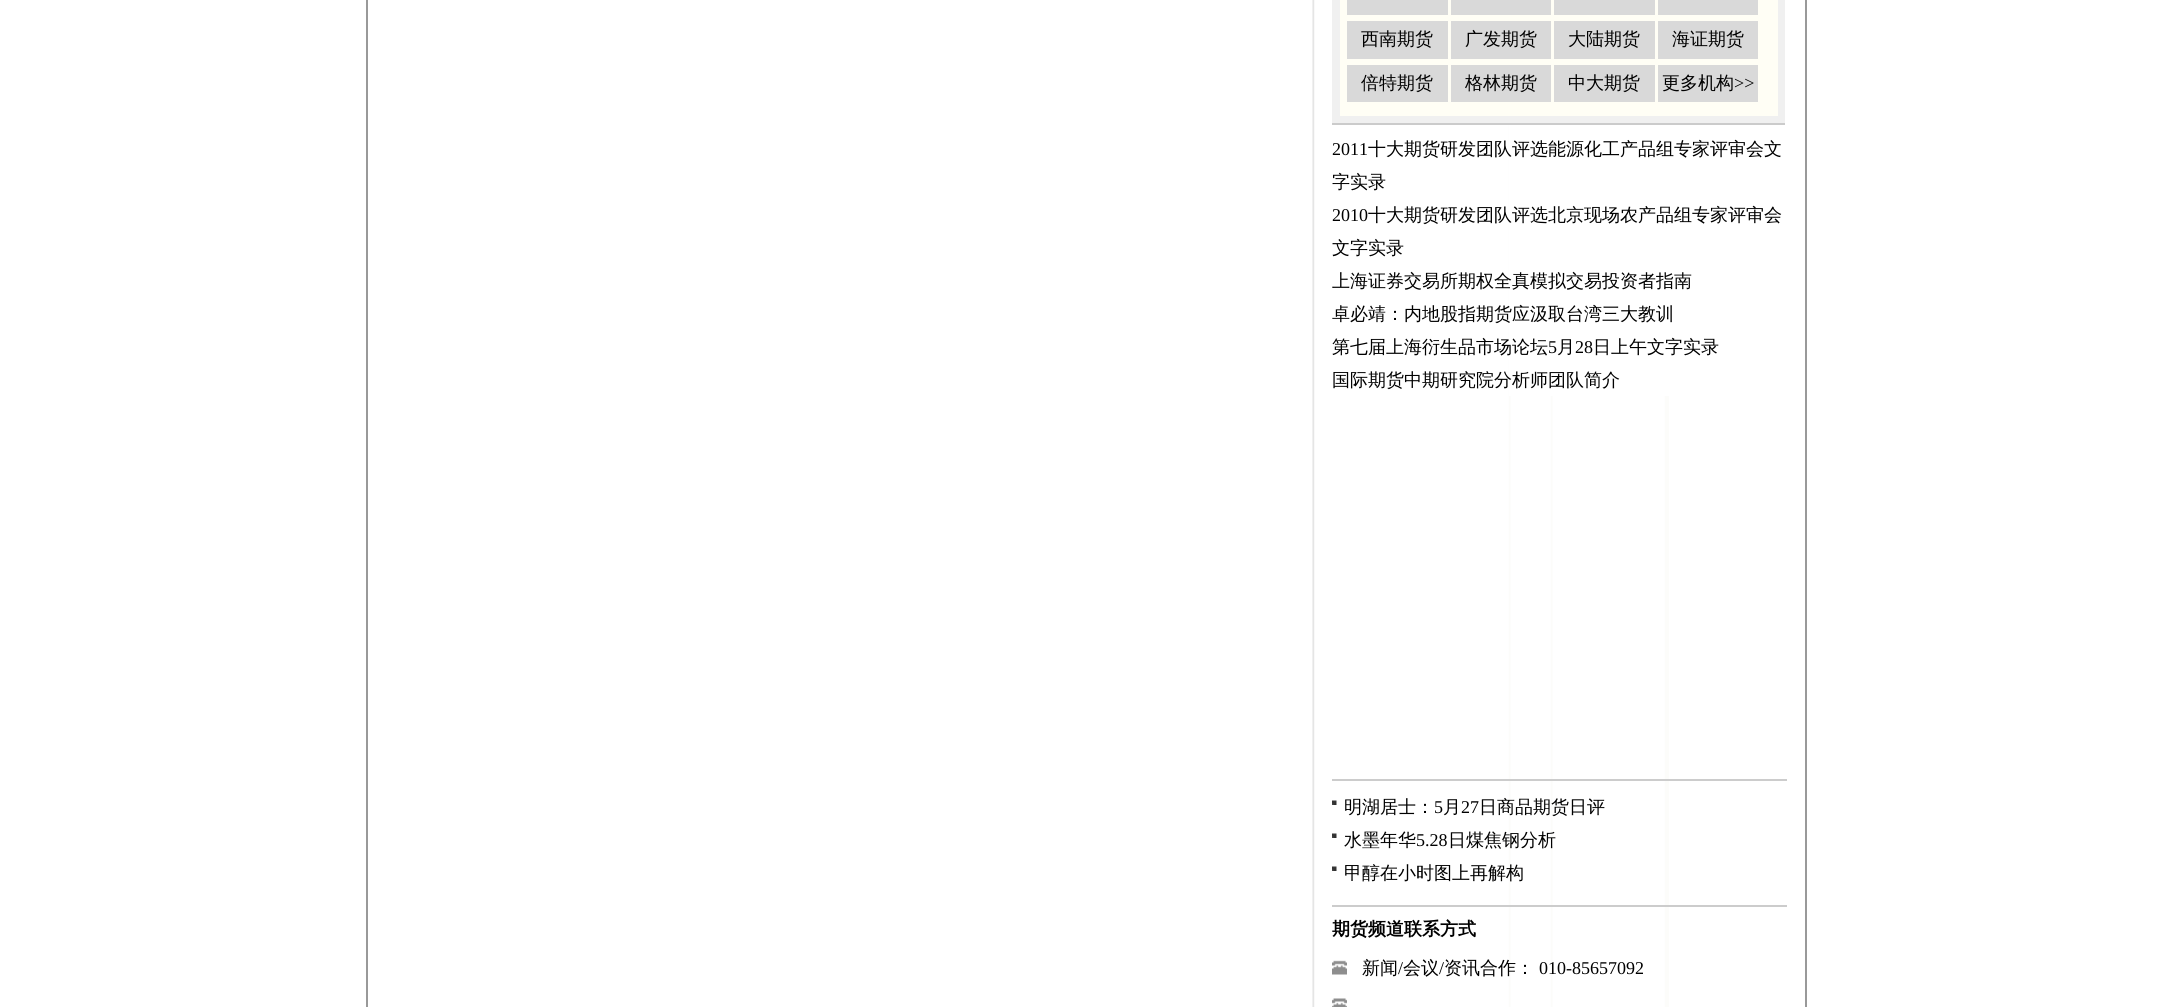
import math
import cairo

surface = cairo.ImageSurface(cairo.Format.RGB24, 2172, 1007)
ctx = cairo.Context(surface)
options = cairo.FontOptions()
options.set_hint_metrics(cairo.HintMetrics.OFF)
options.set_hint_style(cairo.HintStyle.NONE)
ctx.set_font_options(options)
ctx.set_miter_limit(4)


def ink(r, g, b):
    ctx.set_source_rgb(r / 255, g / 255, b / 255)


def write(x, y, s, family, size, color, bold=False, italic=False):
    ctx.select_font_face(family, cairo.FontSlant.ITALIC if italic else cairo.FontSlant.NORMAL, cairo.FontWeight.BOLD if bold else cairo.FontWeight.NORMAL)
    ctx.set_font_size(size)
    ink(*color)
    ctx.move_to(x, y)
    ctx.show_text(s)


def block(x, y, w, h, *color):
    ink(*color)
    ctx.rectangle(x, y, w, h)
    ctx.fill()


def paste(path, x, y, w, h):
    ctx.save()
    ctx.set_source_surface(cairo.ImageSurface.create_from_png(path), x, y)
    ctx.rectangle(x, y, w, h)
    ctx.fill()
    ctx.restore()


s1 = dict(family="WenQuanYi Zen Hei Medium", size=18, color=(0, 0, 0))
s2 = dict(family="Liberation Serif", size=18, color=(0, 0, 0))
s3 = dict(family="WenQuanYi Zen Hei", size=18, color=(0, 0, 0), bold=True)

ink(255, 255, 255)
ctx.paint()
block(1805, 0, 2, 1007, 153, 153, 153)
block(366, 0, 2, 1007, 153, 153, 153)
paste("pic1.png", 1312, 0, 357, 1007)
block(1509, 0, 160, 396, 255, 255, 255)
block(1332, 0, 453, 123, 240, 240, 240)
block(1332, 123, 453, 2, 203, 203, 203)
block(1340, 0, 438, 116, 255, 254, 245)
block(1347, 0, 101, 15, 217, 217, 217)
block(1451, 0, 100, 15, 217, 217, 217)
block(1554, 0, 101, 15, 217, 217, 217)
block(1658, 0, 100, 15, 217, 217, 217)
block(1347, 21, 101, 38, 217, 217, 217)
write(1361, 45, "西南期货", **s1)
block(1451, 21, 100, 38, 217, 217, 217)
write(1465, 45, "广发期货", **s1)
block(1554, 21, 101, 38, 217, 217, 217)
write(1568, 45, "大陆期货", **s1)
block(1658, 21, 100, 38, 217, 217, 217)
write(1672, 45, "海证期货", **s1)
block(1347, 65, 101, 37, 217, 217, 217)
write(1361, 89, "倍特期货", **s1)
block(1451, 65, 100, 37, 217, 217, 217)
write(1465, 89, "格林期货", **s1)
block(1554, 65, 101, 37, 217, 217, 217)
write(1568, 89, "中大期货", **s1)
block(1658, 65, 100, 37, 217, 217, 217)
write(1662, 89, "更多机构", **s1)
write(1734, 89, ">>", **s2)
write(1332, 155, "2011", **s2)
write(1368, 155, "十大期货研发团队评选能源化工产品组专家评审会文", **s1)
write(1332, 188, "字实录", **s1)
write(1332, 221, "2010", **s2)
write(1368, 221, "十大期货研发团队评选北京现场农产品组专家评审会", **s1)
write(1332, 254, "文字实录", **s1)
write(1332, 287, "上海证券交易所期权全真模拟交易投资者指南", **s1)
write(1332, 320, "卓必靖：内地股指期货应汲取台湾三大教训", **s1)
write(1332, 353, "第七届上海衍生品市场论坛", **s1)
write(1548, 353, "5", **s2)
write(1557, 353, "月", **s1)
write(1575, 353, "28", **s2)
write(1593, 353, "日上午文字实录", **s1)
write(1332, 386, "国际期货中期研究院分析师团队简介", **s1)
block(1332, 779, 455, 2, 204, 204, 204)
paste("pic2.png", 1332, 800, 5, 5)
write(1344, 813, "明湖居士：", **s1)
write(1434, 813, "5", **s2)
write(1443, 813, "月", **s1)
write(1461, 813, "27", **s2)
write(1479, 813, "日商品期货日评", **s1)
paste("pic2.png", 1332, 833, 5, 5)
write(1344, 846, "水墨年华", **s1)
write(1416, 846, "5.28", **s2)
write(1448, 846, "日煤焦钢分析", **s1)
paste("pic2.png", 1332, 866, 5, 5)
write(1344, 879, "甲醇在小时图上再解构", **s1)
block(1332, 905, 455, 2, 204, 204, 204)
write(1332, 935, "期货频道联系方式", **s3)
paste("pic3.png", 1332, 960, 15, 15)
write(1362, 974, "新闻", **s1)
write(1398, 974, "/", **s2)
write(1403, 974, "会议", **s1)
write(1439, 974, "/", **s2)
write(1444, 974, "资讯合作：", **s1)
write(1539, 974, "010-85657092", **s2)
paste("pic4.png", 1332, 998, 15, 9)
surface.write_to_png("screenshot.png")
